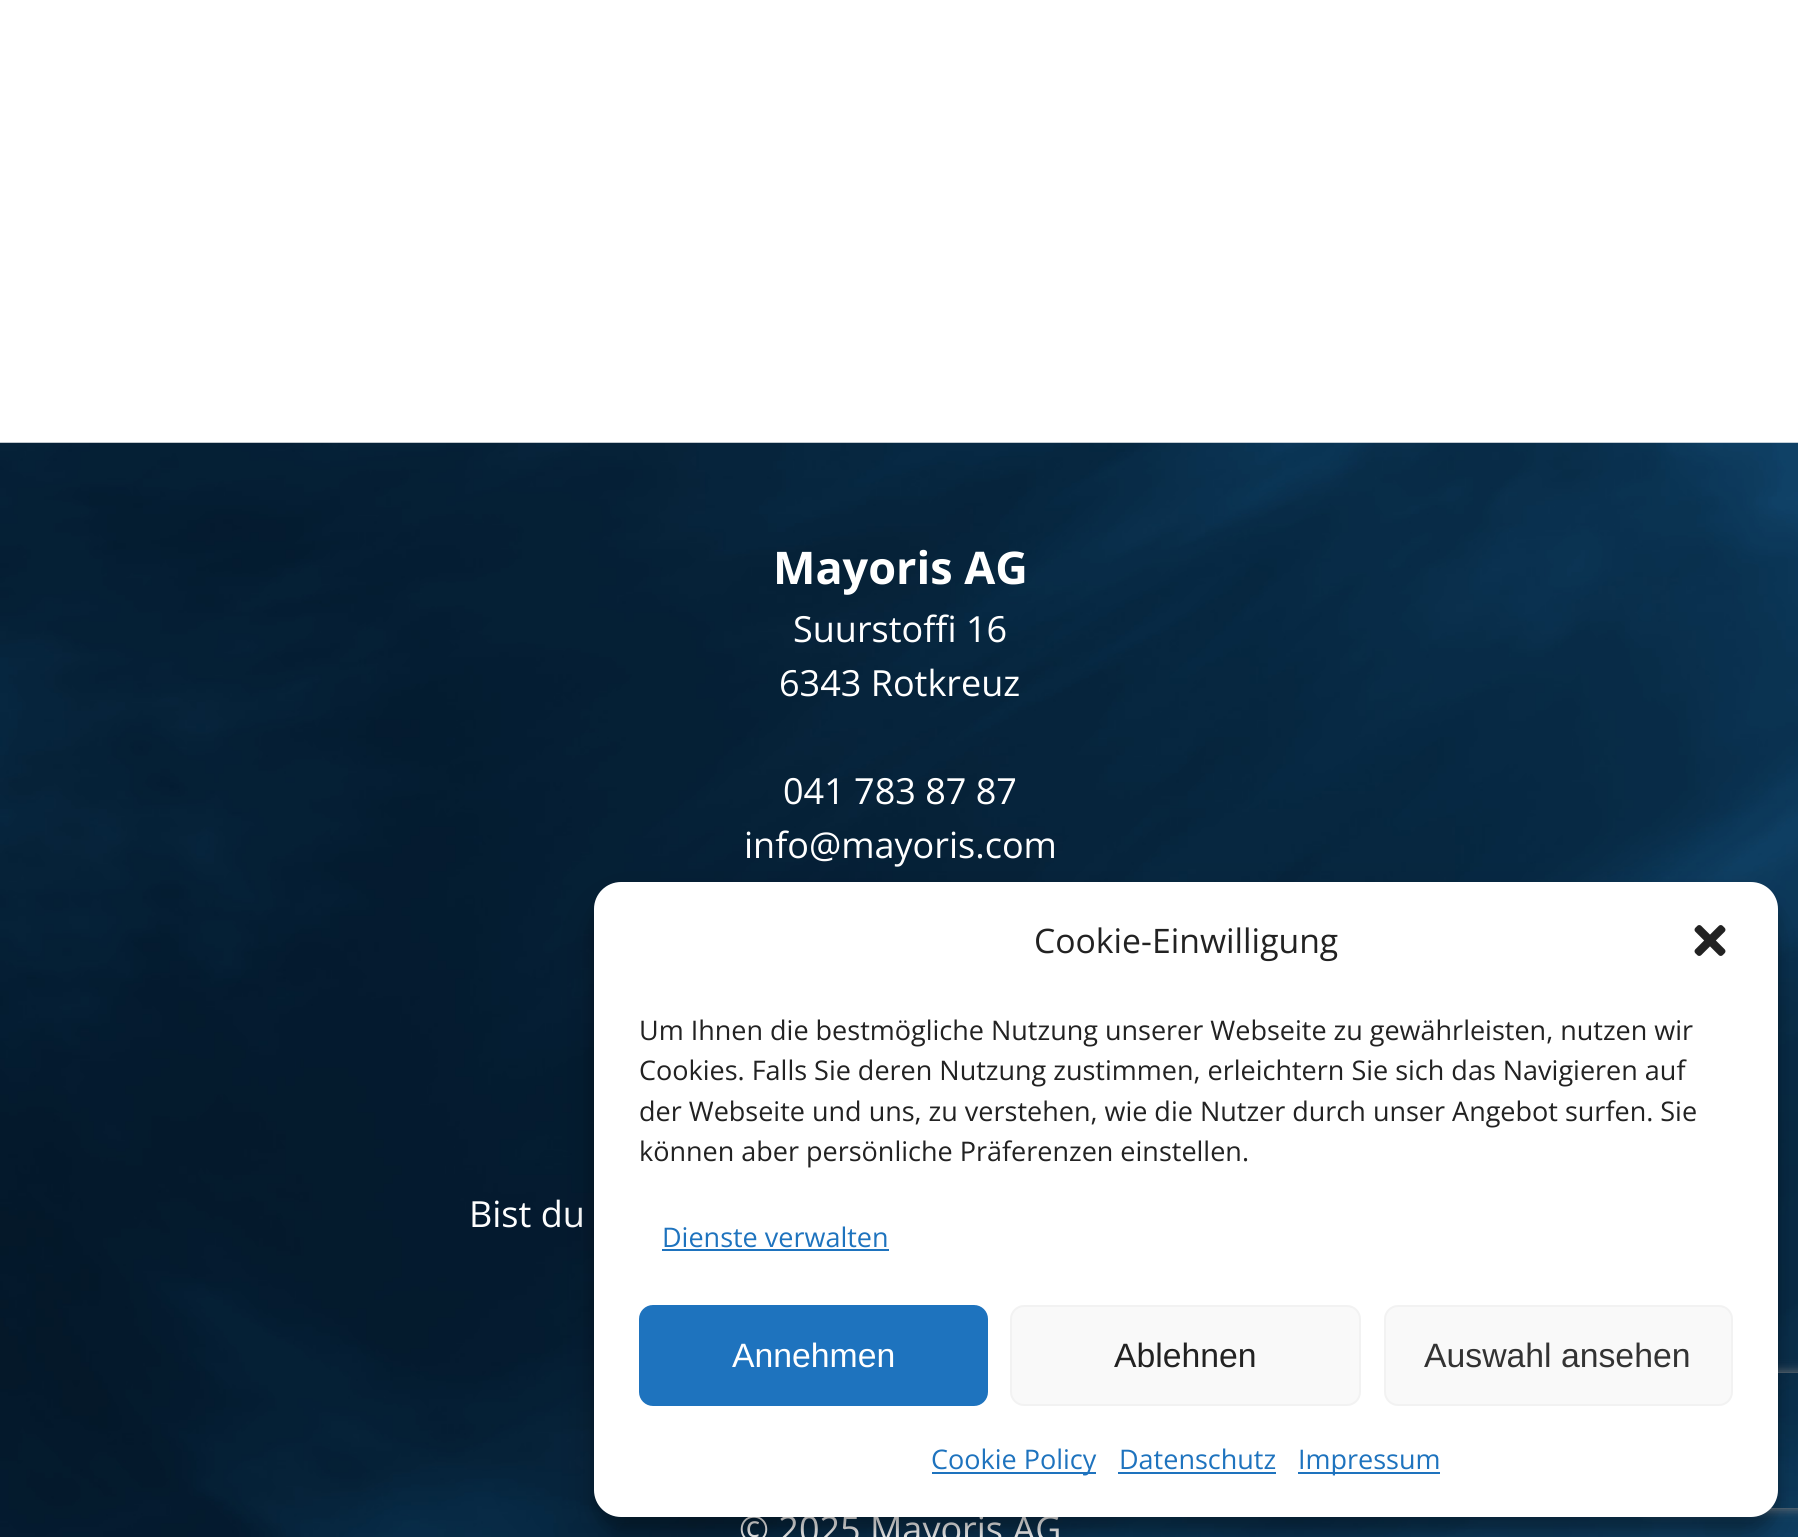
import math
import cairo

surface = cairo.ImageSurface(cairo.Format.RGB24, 1798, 1537)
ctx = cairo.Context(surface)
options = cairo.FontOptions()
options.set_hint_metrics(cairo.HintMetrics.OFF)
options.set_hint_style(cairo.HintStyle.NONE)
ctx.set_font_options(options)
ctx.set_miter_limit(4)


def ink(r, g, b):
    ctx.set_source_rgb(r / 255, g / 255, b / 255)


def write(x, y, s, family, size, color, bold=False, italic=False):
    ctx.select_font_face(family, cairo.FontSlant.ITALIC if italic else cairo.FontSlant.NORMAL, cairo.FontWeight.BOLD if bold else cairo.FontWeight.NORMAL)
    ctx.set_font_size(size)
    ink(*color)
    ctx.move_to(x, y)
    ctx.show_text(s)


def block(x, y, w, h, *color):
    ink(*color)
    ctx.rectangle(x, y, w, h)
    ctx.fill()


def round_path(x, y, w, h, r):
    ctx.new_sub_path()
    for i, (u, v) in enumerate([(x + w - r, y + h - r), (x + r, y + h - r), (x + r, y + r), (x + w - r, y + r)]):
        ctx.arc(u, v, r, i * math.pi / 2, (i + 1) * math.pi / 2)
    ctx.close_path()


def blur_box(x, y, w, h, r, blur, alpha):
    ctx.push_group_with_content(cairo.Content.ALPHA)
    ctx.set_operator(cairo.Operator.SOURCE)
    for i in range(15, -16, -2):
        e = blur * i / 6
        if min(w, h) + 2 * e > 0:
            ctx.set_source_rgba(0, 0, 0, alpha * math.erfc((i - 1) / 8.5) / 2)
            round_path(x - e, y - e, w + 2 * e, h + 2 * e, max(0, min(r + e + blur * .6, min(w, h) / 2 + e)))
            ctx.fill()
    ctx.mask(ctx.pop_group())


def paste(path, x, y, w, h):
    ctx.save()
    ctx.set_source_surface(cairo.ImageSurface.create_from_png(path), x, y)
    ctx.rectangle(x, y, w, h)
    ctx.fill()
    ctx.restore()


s1 = dict(family="Open Sans", size=45, color=(255, 255, 255), bold=True)
s2 = dict(family="Open Sans", size=36, color=(255, 255, 255))
s3 = dict(family="Open Sans", size=33.75, color=(34, 34, 34))
s4 = dict(family="Open Sans", size=27, color=(34, 34, 34))
s5 = dict(family="Open Sans", size=27, color=(30, 115, 190))
s6 = dict(family="Liberation Sans", size=33.75, color=(255, 255, 255))
s7 = dict(family="Liberation Sans", size=33.75, color=(34, 34, 34))
s8 = dict(family="Liberation Sans", size=33.75, color=(51, 51, 51))

ink(255, 255, 255)
ctx.paint()
paste("pic1.png", 0, 442, 1798, 1095)
write(773, 584, "Mayoris AG", **s1)
write(793, 642, "Suurstoffi 16", **s2)
write(779, 696, "6343 Rotkreuz", **s2)
write(783, 804, "041 783 87 87", **s2)
write(744, 858, "info@mayoris.com", **s2)
write(469, 1227, "Bist du", **s2)
write(739, 1542, "© 2025 Mayoris AG", **s2)
ink(0, 0, 0)
blur_box(594, 896, 1184, 634, 27, 7, 0.23)
blur_box(594, 905, 1184, 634, 27, 22.5, 0.19)
ctx.save()
ctx.set_fill_rule(cairo.FillRule.EVEN_ODD)
ctx.new_path()
ctx.move_to(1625, 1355)
ctx.line_to(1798, 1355)
ctx.line_to(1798, 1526)
ctx.line_to(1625, 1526)
ctx.close_path()
ctx.move_to(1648, 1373)
ctx.line_to(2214, 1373)
ctx.curve_to(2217, 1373, 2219, 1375, 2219, 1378)
ctx.line_to(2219, 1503)
ctx.curve_to(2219, 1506, 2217, 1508, 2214, 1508)
ctx.line_to(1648, 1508)
ctx.curve_to(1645, 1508, 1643, 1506, 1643, 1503)
ctx.line_to(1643, 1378)
ctx.curve_to(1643, 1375, 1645, 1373, 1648, 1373)
ctx.close_path()
ctx.clip()
ink(128, 128, 128)
blur_box(1643, 1373, 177, 135, 5, 5.5, 1)
ctx.restore()
ink(255, 255, 255)
round_path(594, 882, 1184, 635, 27)
ctx.fill()
write(1034, 953, "Cookie-Einwilligung", **s3)
paste("pic2.png", 1694, 925, 32, 31)
write(639, 1040, "Um Ihnen die bestmögliche Nutzung unserer Webseite zu gewährleisten, nutzen wir", **s4)
write(639, 1080, "Cookies. Falls Sie deren Nutzung zustimmen, erleichtern Sie sich das Navigieren auf", **s4)
write(639, 1121, "der Webseite und uns, zu verstehen, wie die Nutzer durch unser Angebot surfen. Sie", **s4)
write(639, 1161, "können aber persönliche Präferenzen einstellen.", **s4)
write(662, 1247, "Dienste verwalten", **s5)
block(662, 1249, 227, 2, 30, 115, 190)
round_path(640, 1306, 347, 99, 13)
ctx.fill_preserve()
ctx.stroke()
write(732, 1367, "Annehmen", **s6)
ink(249, 249, 249)
round_path(1011, 1306, 349, 99, 13)
ctx.fill_preserve()
ink(242, 242, 242)
ctx.stroke()
write(1114, 1367, "Ablehnen", **s7)
ink(249, 249, 249)
round_path(1385, 1306, 347, 99, 13)
ctx.fill_preserve()
ink(242, 242, 242)
ctx.stroke()
write(1424, 1367, "Auswahl ansehen", **s8)
block(932, 1472, 164, 2, 30, 115, 190)
write(931, 1469, "Cookie Policy", **s5)
write(1119, 1469, "Datenschutz", **s5)
block(1118, 1472, 158, 2, 30, 115, 190)
block(1298, 1472, 142, 2, 30, 115, 190)
write(1298, 1469, "Impressum", **s5)
surface.write_to_png("screenshot.png")
